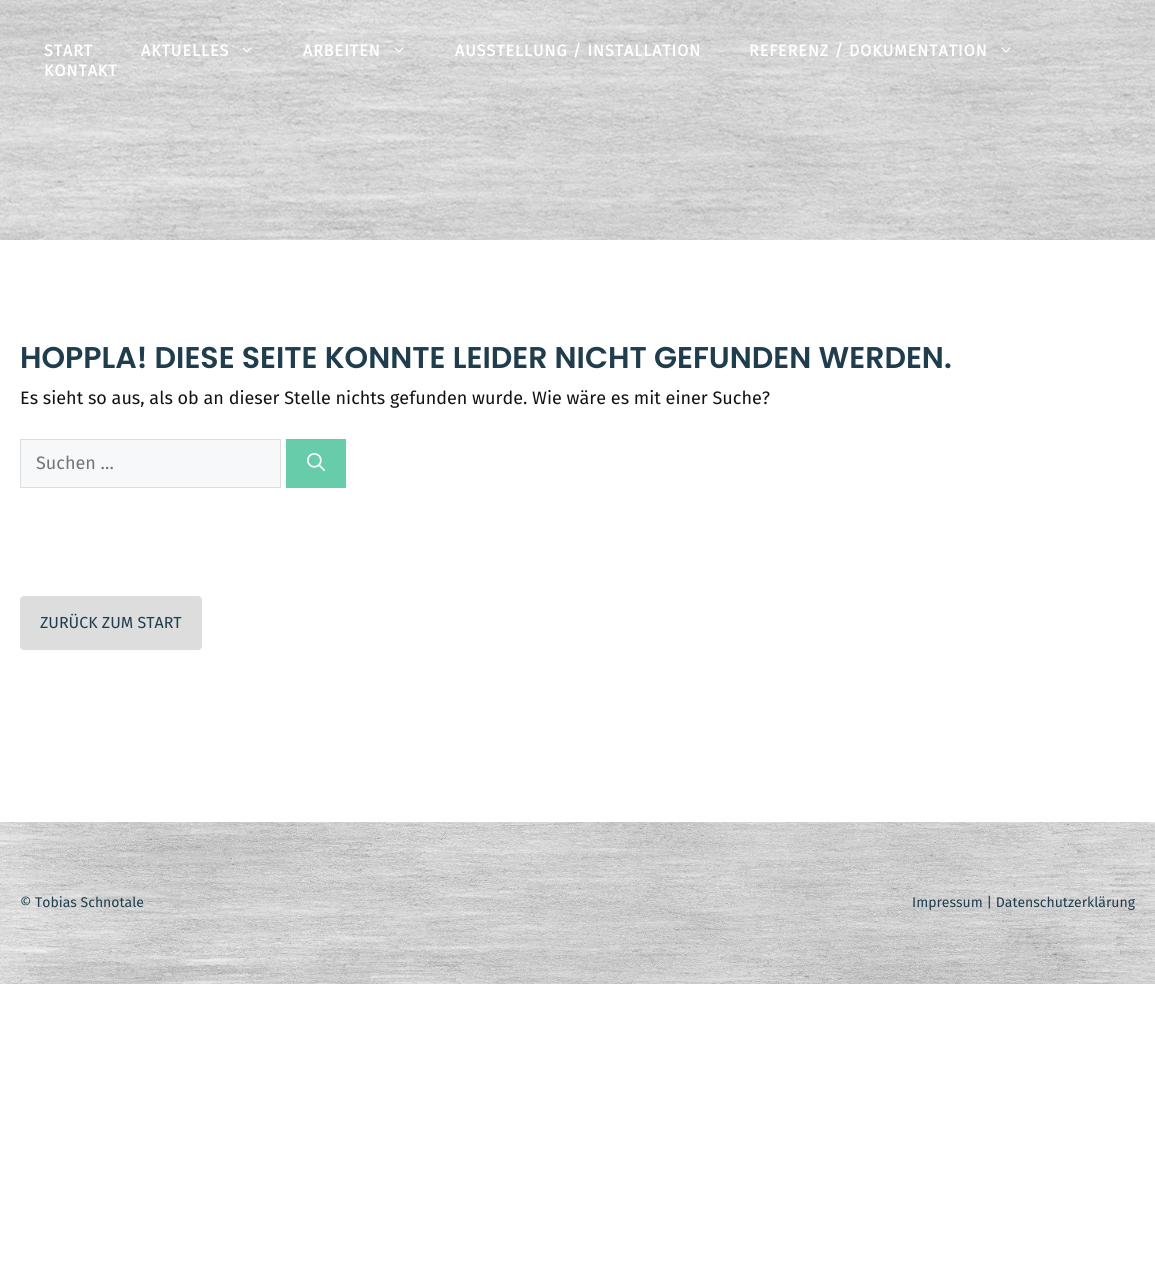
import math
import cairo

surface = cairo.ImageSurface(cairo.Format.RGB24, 1155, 1288)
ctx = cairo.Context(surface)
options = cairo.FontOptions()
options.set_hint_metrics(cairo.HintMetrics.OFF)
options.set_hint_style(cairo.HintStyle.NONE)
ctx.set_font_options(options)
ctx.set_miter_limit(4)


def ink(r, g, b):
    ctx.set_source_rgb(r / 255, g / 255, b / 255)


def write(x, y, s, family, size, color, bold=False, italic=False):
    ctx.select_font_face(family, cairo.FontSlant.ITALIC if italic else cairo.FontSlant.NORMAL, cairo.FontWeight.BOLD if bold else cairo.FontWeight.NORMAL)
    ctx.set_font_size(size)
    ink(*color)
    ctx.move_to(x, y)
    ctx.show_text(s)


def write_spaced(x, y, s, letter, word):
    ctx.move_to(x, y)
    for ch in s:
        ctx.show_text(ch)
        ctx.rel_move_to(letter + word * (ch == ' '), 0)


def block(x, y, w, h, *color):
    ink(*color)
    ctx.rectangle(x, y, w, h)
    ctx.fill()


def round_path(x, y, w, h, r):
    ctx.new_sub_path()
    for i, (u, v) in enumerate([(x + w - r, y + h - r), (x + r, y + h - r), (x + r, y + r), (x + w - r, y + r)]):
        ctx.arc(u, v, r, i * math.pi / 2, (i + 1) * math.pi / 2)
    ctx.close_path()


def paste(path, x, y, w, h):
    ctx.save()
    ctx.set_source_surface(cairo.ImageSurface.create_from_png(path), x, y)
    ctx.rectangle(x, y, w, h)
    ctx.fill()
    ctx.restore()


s1 = dict(family="Poppins SemiBold", size=30, color=(31, 61, 77))
s2 = dict(family="Fira Sans", size=18, color=(18, 18, 18))
s3 = dict(family="Fira Sans", size=18, color=(117, 117, 117))
s4 = dict(family="Fira Sans", size=16, color=(31, 61, 77))
s5 = dict(family="Fira Sans", size=14, color=(31, 61, 77))

ink(255, 255, 255)
ctx.paint()
paste("pic1.png", 0, 0, 1155, 240)
ctx.select_font_face("Fira Sans", cairo.FontSlant.NORMAL, cairo.FontWeight.BOLD)
ctx.set_font_size(16)
ink(255, 255, 255)
write_spaced(44, 56, "START", 1, 0)
write_spaced(141, 56, "AKTUELLES", 1, 0)
paste("pic2.png", 242, 47, 10, 6)
write_spaced(303, 56, "ARBEITEN", 1, 0)
paste("pic3.png", 394, 47, 10, 6)
write_spaced(455, 56, "AUSSTELLUNG / INSTALLATION", 1, 0)
write_spaced(749, 56, "REFERENZ / DOKUMENTATION", 1, 0)
paste("pic4.png", 1001, 47, 10, 6)
write_spaced(44, 76, "KONTAKT", 1, 0)
write(20, 368, "HOPPLA! DIESE SEITE KONNTE LEIDER NICHT GEFUNDEN WERDEN.", **s1)
write(20, 404, "Es sieht so aus, als ob an dieser Stelle nichts gefunden wurde. Wie wäre es mit einer Suche?", **s2)
ink(247, 248, 249)
ctx.rectangle(20.5, 439.5, 260, 48)
ctx.fill_preserve()
ink(221, 221, 221)
ctx.set_line_width(1)
ctx.stroke()
write(36, 469, "Suchen …", **s3)
block(286, 439, 60, 49, 102, 204, 170)
paste("pic5.png", 307, 453, 18, 18)
ink(221, 221, 221)
round_path(20, 596, 182, 54, 4)
ctx.fill()
write(40, 628, "ZURÜCK ZUM START", **s4)
paste("pic6.png", 0, 822, 1155, 162)
write(20, 907, "© Tobias Schnotale", **s5)
write(912, 907, "Impressum | Datenschutzerklärung", **s5)
surface.write_to_png("screenshot.png")
